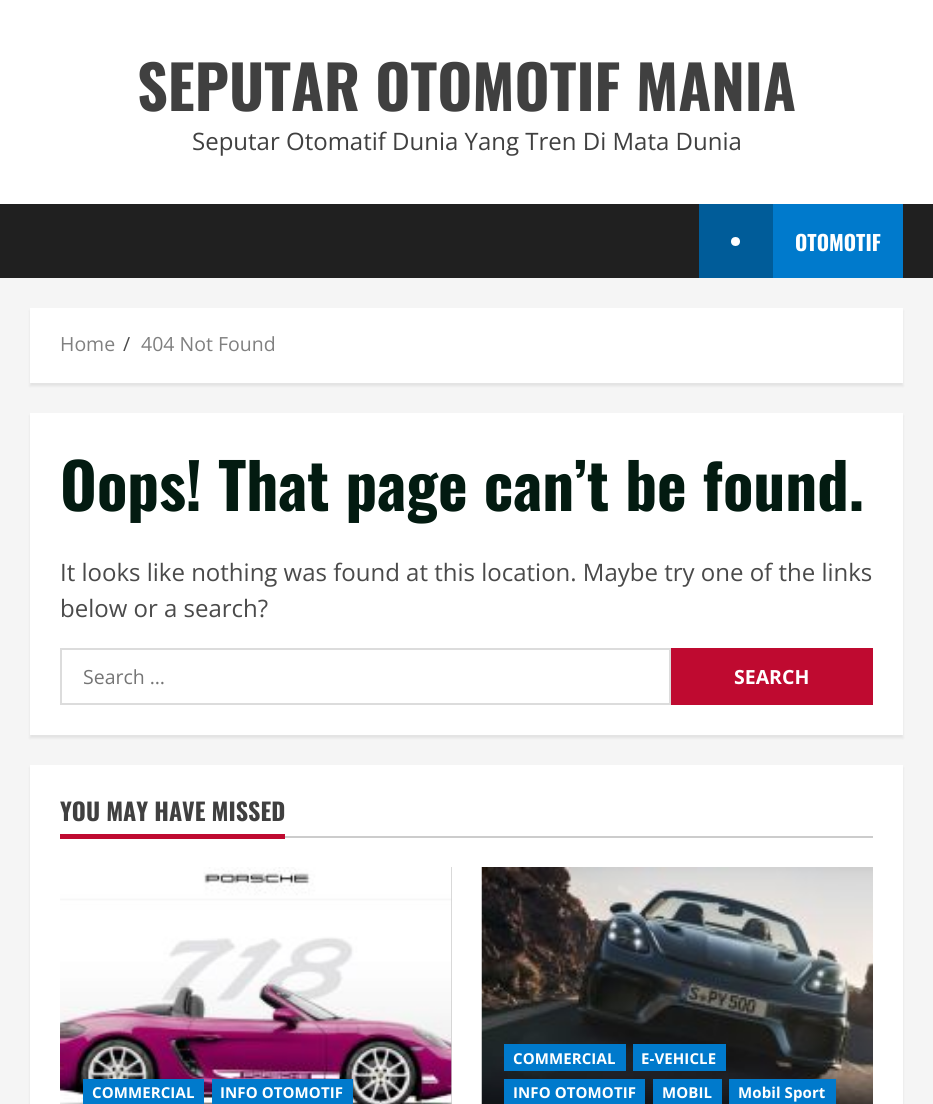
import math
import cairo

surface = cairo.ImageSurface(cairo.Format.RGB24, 933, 1104)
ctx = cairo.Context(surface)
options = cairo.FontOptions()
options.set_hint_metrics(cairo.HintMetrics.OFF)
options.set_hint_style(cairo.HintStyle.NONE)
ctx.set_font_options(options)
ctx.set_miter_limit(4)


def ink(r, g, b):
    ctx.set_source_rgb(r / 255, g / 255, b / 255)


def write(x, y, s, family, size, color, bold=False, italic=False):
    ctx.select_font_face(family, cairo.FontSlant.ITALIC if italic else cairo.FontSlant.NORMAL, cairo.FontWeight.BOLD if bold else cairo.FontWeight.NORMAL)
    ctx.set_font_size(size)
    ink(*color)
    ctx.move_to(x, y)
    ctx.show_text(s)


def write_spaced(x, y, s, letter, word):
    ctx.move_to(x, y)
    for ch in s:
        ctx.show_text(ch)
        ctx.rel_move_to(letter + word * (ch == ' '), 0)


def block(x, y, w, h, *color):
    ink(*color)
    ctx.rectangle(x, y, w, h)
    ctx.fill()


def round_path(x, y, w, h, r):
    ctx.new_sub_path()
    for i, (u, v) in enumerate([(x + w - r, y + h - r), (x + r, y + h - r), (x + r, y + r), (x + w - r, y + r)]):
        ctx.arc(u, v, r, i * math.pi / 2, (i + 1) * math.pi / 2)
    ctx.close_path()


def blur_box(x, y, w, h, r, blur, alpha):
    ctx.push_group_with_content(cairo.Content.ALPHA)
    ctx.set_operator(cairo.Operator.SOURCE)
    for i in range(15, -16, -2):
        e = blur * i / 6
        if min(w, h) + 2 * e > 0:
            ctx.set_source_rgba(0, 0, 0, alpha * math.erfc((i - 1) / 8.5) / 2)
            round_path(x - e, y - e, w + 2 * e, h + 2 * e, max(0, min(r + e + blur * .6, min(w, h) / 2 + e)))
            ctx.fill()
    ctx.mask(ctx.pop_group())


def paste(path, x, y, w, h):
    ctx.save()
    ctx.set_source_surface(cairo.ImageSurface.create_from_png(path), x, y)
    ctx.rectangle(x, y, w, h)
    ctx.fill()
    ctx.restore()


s1 = dict(family="Oswald", size=60, color=(64, 64, 64), bold=True)
s2 = dict(family="Open Sans", size=24, color=(64, 64, 64))
s3 = dict(family="Oswald", size=21, color=(255, 255, 255), bold=True)
s4 = dict(family="Open Sans", size=19.5, color=(128, 128, 128))
s5 = dict(family="Open Sans", size=19.5, color=(74, 74, 74))
s6 = dict(family="Oswald", size=63, color=(3, 27, 17), bold=True)
s7 = dict(family="Open Sans", size=24, color=(74, 74, 74))
s8 = dict(family="Open Sans", size=19.5, color=(117, 117, 117))
s9 = dict(family="Open Sans", size=19.5, color=(255, 255, 255), bold=True)
s10 = dict(family="Oswald", size=24, color=(64, 64, 64), bold=True)

ink(245, 245, 245)
ctx.paint()
block(0, 0, 933, 204, 255, 255, 255)
write(137, 111, "SEPUTAR OTOMOTIF MANIA", **s1)
write(192, 150, "Seputar Otomatif Dunia Yang Tren Di Mata Dunia", **s2)
block(0, 204, 933, 74, 32, 32, 32)
block(773, 204, 130, 74, 0, 122, 204)
block(699, 204, 74, 74, 0, 92, 153)
ink(255, 255, 255)
ctx.new_path()
ctx.arc(735.5, 241.5, 4.5, 0, 2 * math.pi)
ctx.fill()
write(795, 251, "OTOMOTIF", **s3)
ink(0, 0, 0)
blur_box(30, 311, 873, 75, 0, 1.5, 0.08)
block(30, 308, 873, 75, 255, 255, 255)
write(60, 351, "Home", **s4)
write(123, 351, "/", **s5)
write(141, 351, "404 Not Found", **s4)
ink(0, 0, 0)
blur_box(30, 416, 873, 322, 0, 1.5, 0.08)
block(30, 413, 873, 322, 255, 255, 255)
write(60, 511, "Oops! That page can’t be found.", **s6)
write(60, 581, "It looks like nothing was found at this location. Maybe try one of the links", **s7)
write(60, 617, "below or a search?", **s7)
ctx.rectangle(61, 649, 609, 55)
ink(220, 220, 220)
ctx.stroke()
write(83, 684, "Search …", **s8)
block(671, 648, 202, 57, 191, 10, 48)
write(734, 684, "SEARCH", **s9)
ink(0, 0, 0)
blur_box(30, 768, 873, 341, 0, 1.5, 0.08)
block(30, 765, 873, 339, 255, 255, 255)
block(285, 836, 588, 2, 204, 204, 204)
write(60, 821, "YOU MAY HAVE MISSED", **s10)
block(60, 834, 225, 5, 191, 10, 48)
block(451, 867, 1, 237, 204, 204, 204)
paste("pic1.png", 60, 867, 392, 237)
block(83, 1079, 121, 25, 0, 122, 204)
ctx.select_font_face("Open Sans", cairo.FontSlant.NORMAL, cairo.FontWeight.BOLD)
ctx.set_font_size(15)
ink(255, 255, 255)
write_spaced(92, 1098, "COMMERCIAL", 0.1, 0)
block(212, 1079, 141, 25, 0, 122, 204)
ink(255, 255, 255)
write_spaced(220, 1098, "INFO OTOMOTIF", 0.1, 0)
paste("pic2.png", 481, 867, 392, 237)
block(504, 1044, 122, 27, 0, 122, 204)
ink(255, 255, 255)
write_spaced(513, 1064, "COMMERCIAL", 0.1, 0)
block(633, 1044, 93, 27, 0, 122, 204)
ink(255, 255, 255)
write_spaced(641, 1064, "E-VEHICLE", 0.1, 0)
block(504, 1079, 141, 25, 0, 122, 204)
ink(255, 255, 255)
write_spaced(513, 1098, "INFO OTOMOTIF", 0.1, 0)
block(653, 1079, 69, 25, 0, 122, 204)
ink(255, 255, 255)
write_spaced(662, 1098, "MOBIL", 0.1, 0)
block(729, 1079, 107, 25, 0, 122, 204)
ink(255, 255, 255)
write_spaced(738, 1098, "Mobil Sport", 0.1, 0)
surface.write_to_png("screenshot.png")
